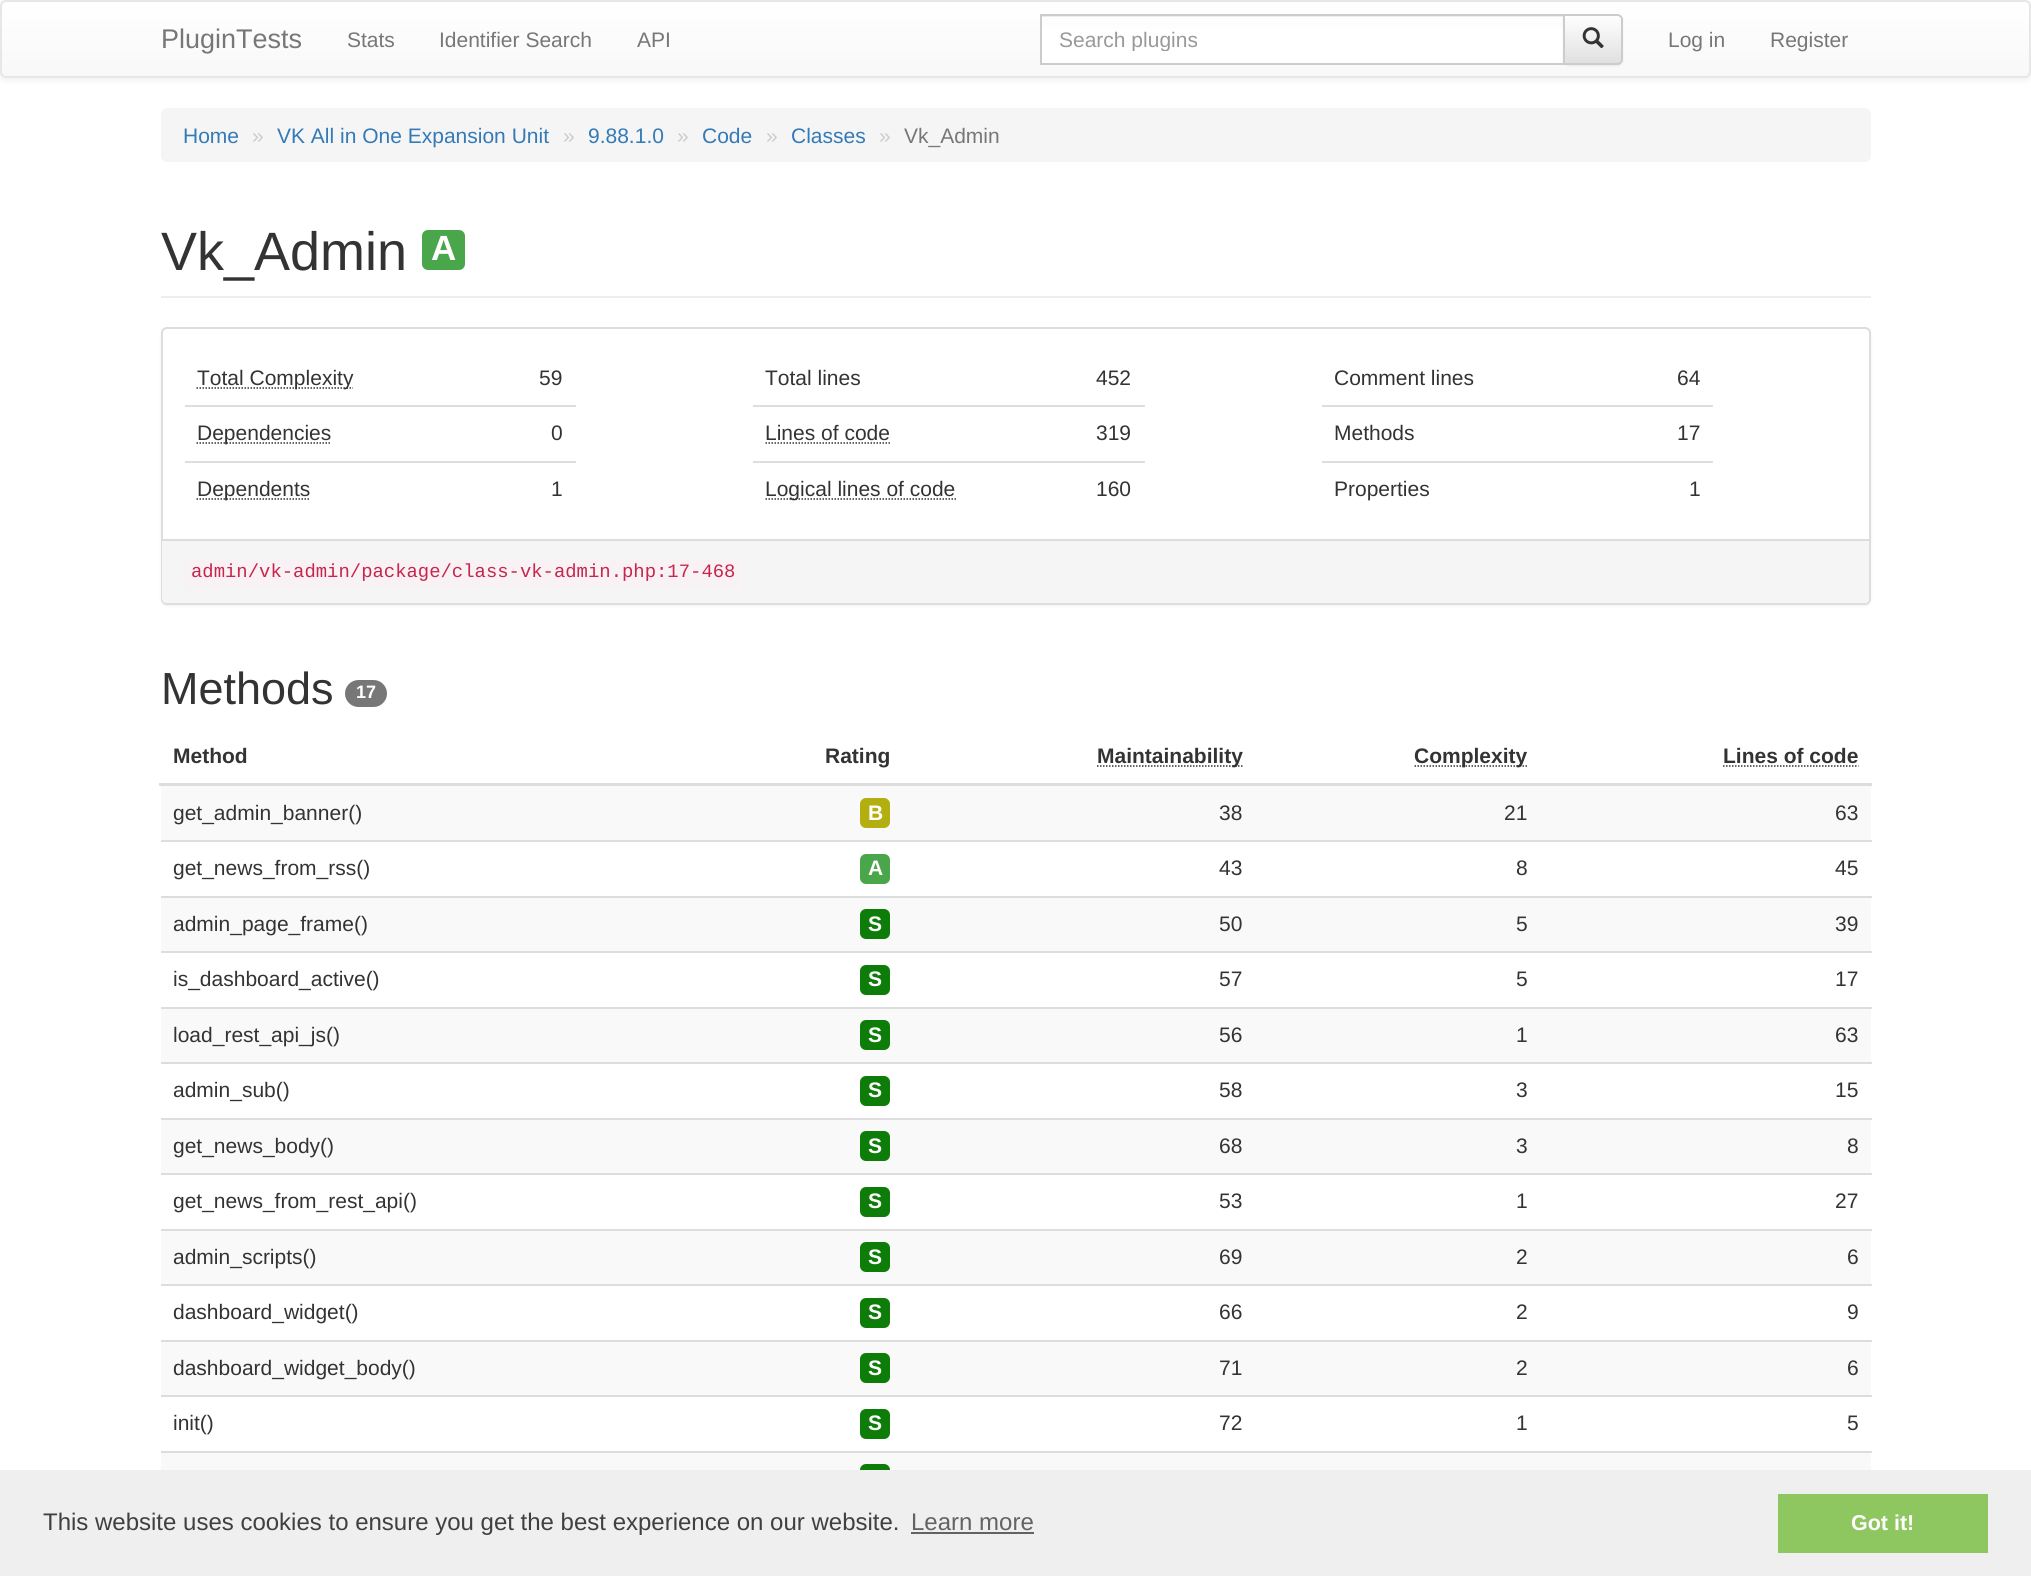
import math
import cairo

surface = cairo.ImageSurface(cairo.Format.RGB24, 2031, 1576)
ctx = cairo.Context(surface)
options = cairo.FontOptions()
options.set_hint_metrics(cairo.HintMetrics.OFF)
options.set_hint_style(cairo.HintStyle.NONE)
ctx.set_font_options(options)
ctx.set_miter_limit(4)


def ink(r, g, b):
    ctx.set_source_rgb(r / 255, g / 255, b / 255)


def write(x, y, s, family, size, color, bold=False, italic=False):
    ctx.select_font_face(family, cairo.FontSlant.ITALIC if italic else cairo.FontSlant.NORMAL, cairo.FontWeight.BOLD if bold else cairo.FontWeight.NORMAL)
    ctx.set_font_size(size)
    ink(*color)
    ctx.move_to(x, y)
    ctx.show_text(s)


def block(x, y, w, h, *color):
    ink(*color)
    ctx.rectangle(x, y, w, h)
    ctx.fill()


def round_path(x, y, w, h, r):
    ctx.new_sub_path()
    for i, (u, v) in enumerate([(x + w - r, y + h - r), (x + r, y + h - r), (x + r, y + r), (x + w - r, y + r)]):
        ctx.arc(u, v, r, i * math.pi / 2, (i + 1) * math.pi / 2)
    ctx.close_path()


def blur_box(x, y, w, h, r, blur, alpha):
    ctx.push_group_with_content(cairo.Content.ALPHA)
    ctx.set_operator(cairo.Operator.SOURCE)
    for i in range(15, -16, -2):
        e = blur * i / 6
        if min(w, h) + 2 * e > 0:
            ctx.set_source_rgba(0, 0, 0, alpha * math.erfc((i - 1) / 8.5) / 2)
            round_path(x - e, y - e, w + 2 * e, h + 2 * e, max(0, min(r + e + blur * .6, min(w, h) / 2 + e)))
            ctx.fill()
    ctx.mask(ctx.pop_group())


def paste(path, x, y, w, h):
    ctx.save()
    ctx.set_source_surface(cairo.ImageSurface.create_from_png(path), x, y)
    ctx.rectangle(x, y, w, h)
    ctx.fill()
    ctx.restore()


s1 = dict(family="Liberation Sans", size=27, color=(119, 119, 119))
s2 = dict(family="Liberation Sans", size=21, color=(119, 119, 119))
s3 = dict(family="Liberation Sans", size=21, color=(153, 153, 153))
s4 = dict(family="Liberation Sans", size=21, color=(51, 122, 183))
s5 = dict(family="Liberation Sans", size=21, color=(204, 204, 204))
s6 = dict(family="Liberation Sans", size=54, color=(51, 51, 51))
s7 = dict(family="Liberation Sans", size=35, color=(255, 255, 255), bold=True)
s8 = dict(family="Liberation Sans", size=21, color=(51, 51, 51))
s9 = dict(family="Liberation Mono", size=18.9, color=(199, 37, 78))
s10 = dict(family="Liberation Sans", size=45, color=(51, 51, 51))
s11 = dict(family="Liberation Sans", size=18, color=(255, 255, 255), bold=True)
s12 = dict(family="Liberation Sans", size=21, color=(51, 51, 51), bold=True)
s13 = dict(family="Liberation Sans", size=21, color=(255, 255, 255), bold=True)
s14 = dict(family="Liberation Sans", size=24, color=(64, 64, 64))
s15 = dict(family="Liberation Sans", size=24, color=(99, 99, 99))
s16 = dict(family="Liberation Sans", size=21.5, color=(255, 255, 255), bold=True)

ink(255, 255, 255)
ctx.paint()
ink(0, 0, 0)
blur_box(0, 2, 2031, 78, 6, 4, 0.07)
ctx.save()
round_path(0, 0, 2031, 78, 6)
ctx.clip()
gradient = cairo.LinearGradient(1016, 1.5, 1016, 77)
gradient.add_color_stop_rgba(0, 1, 1, 1, 1)
gradient.add_color_stop_rgba(1, 0.973, 0.973, 0.973, 1)
ctx.set_source(gradient)
ctx.rectangle(0, 2, 2031, 75)
ctx.fill()
ctx.restore()
round_path(1, 1, 2029, 76, 5)
ink(231, 231, 231)
ctx.stroke()
write(161, 48, "PluginTests", **s1)
write(347, 47, "Stats", **s2)
write(439, 47, "Identifier Search", **s2)
write(637, 47, "API", **s2)
block(1042, 28, 521, 35, 255, 255, 255)
block(1041, 16, 522, 1, 236, 236, 236)
ctx.rectangle(1041, 15, 523, 49)
ink(204, 204, 204)
ctx.stroke()
ctx.save()
ctx.rectangle(1059, 27, 480, 24)
ctx.clip()
write(1059, 47, "Search plugins", **s3)
ctx.restore()
ink(0, 0, 0)
blur_box(1563, 15, 60, 51, 6, 1, 0.07)
ctx.save()
ctx.new_path()
ctx.move_to(1563, 14)
ctx.line_to(1617, 14)
ctx.curve_to(1620.5, 14, 1623, 16.5, 1623, 20)
ctx.line_to(1623, 59)
ctx.curve_to(1623, 62.5, 1620.5, 65, 1617, 65)
ctx.line_to(1563, 65)
ctx.close_path()
ctx.clip()
gradient = cairo.LinearGradient(1593, 15, 1593, 63)
gradient.add_color_stop_rgba(0, 1, 1, 1, 1)
gradient.add_color_stop_rgba(1, 0.878, 0.878, 0.878, 1)
ctx.set_source(gradient)
ctx.rectangle(1565, 15, 58, 48)
ctx.fill()
ctx.restore()
ctx.new_path()
ctx.move_to(1564, 15)
ctx.line_to(1617, 15)
ctx.curve_to(1620, 15, 1622, 17, 1622, 20)
ctx.line_to(1622, 59)
ctx.curve_to(1622, 62, 1620, 64, 1617, 64)
ctx.line_to(1564, 64)
ctx.close_path()
ink(204, 204, 204)
ctx.stroke()
paste("pic1.png", 1582, 27, 22, 22)
write(1668, 47, "Log in", **s2)
write(1770, 47, "Register", **s2)
ink(245, 245, 245)
round_path(161, 108, 1710, 54, 6)
ctx.fill()
write(183, 143, "Home", **s4)
write(252, 143, "»", **s5)
write(277, 143, "VK All in One Expansion Unit", **s4)
write(563, 143, "»", **s5)
write(588, 143, "9.88.1.0", **s4)
write(677, 143, "»", **s5)
write(702, 143, "Code", **s4)
write(766, 143, "»", **s5)
write(791, 143, "Classes", **s4)
write(879, 143, "»", **s5)
write(904, 143, "Vk_Admin", **s2)
block(161, 296, 1710, 2, 238, 238, 238)
write(161, 270, "Vk_Admin", **s6)
ink(73, 166, 75)
round_path(422, 230, 43, 40, 6)
ctx.fill()
write(431, 260, "A", **s7)
ink(0, 0, 0)
blur_box(161, 329, 1710, 277, 6, 1.5, 0.05)
ink(255, 255, 255)
round_path(162, 328, 1708, 276, 5)
ctx.fill_preserve()
ink(221, 221, 221)
ctx.stroke()
ctx.new_path()
ctx.move_to(196.5, 388)
ctx.line_to(353, 388)
ink(51, 51, 51)
ctx.set_line_width(1.5)
ctx.set_dash([1.5, 1.5])
ctx.stroke()
write(197, 385, "Total Complexity", **s8)
write(539, 385, "59", **s8)
ctx.new_path()
ctx.move_to(196.5, 443)
ctx.line_to(331, 443)
ctx.stroke()
write(197, 440, "Dependencies", **s8)
block(185, 405, 391, 2, 221, 221, 221)
write(551, 440, "0", **s8)
ctx.new_path()
ctx.move_to(196.5, 499)
ctx.line_to(310, 499)
ctx.stroke()
write(197, 496, "Dependents", **s8)
block(185, 461, 391, 2, 221, 221, 221)
write(551, 496, "1", **s8)
write(765, 385, "Total lines", **s8)
write(1096, 385, "452", **s8)
write(765, 440, "Lines of code", **s8)
ctx.new_path()
ctx.move_to(765.5, 443)
ctx.line_to(890.5, 443)
ctx.stroke()
block(753, 405, 392, 2, 221, 221, 221)
write(1096, 440, "319", **s8)
ctx.new_path()
ctx.move_to(765.5, 499)
ctx.line_to(956, 499)
ctx.stroke()
write(765, 496, "Logical lines of code", **s8)
block(753, 461, 392, 2, 221, 221, 221)
write(1096, 496, "160", **s8)
write(1334, 385, "Comment lines", **s8)
write(1677, 385, "64", **s8)
write(1334, 440, "Methods", **s8)
block(1322, 405, 391, 2, 221, 221, 221)
write(1677, 440, "17", **s8)
write(1334, 496, "Properties", **s8)
block(1322, 461, 391, 2, 221, 221, 221)
write(1689, 496, "1", **s8)
ink(245, 245, 245)
ctx.new_path()
ctx.move_to(162, 539)
ctx.line_to(1869, 539)
ctx.line_to(1869, 598)
ctx.curve_to(1869, 601, 1867, 603, 1864, 603)
ctx.line_to(167, 603)
ctx.curve_to(164, 603, 162, 601, 162, 598)
ctx.close_path()
ctx.fill()
block(162, 539, 1707, 2, 221, 221, 221)
ink(249, 242, 244)
round_path(185, 560, 556, 27, 6)
ctx.fill()
write(191, 577, "admin/vk-admin/package/class-vk-admin.php:17-468", **s9)
write(161, 704, "Methods", **s10)
ink(119, 119, 119)
round_path(345, 680, 42, 27, 13.5)
ctx.fill()
write(356, 698, "17", **s11)
write(173, 763, "Method", **s12)
write(825, 763, "Rating", **s12)
ctx.new_path()
ctx.move_to(1097, 766)
ctx.line_to(1243, 766)
ctx.stroke()
write(1097, 763, "Maintainability", **s12)
ctx.new_path()
ctx.move_to(1414.5, 766)
ctx.line_to(1527.5, 766)
ctx.stroke()
write(1414, 763, "Complexity", **s12)
block(159, 783, 1713, 3, 221, 221, 221)
write(1723, 763, "Lines of code", **s12)
ctx.new_path()
ctx.move_to(1723, 766)
ctx.line_to(1858.5, 766)
ctx.stroke()
block(161, 786, 1710, 54, 249, 249, 249)
write(173, 820, "get_admin_banner()", **s8)
ink(180, 175, 17)
round_path(860, 798, 30, 30, 6)
ctx.fill()
write(868, 820, "B", **s13)
write(1219, 820, "38", **s8)
write(1504, 820, "21", **s8)
write(1835, 820, "63", **s8)
write(173, 875, "get_news_from_rss()", **s8)
ink(73, 166, 75)
round_path(860, 854, 30, 30, 6)
ctx.fill()
write(868, 875, "A", **s13)
write(1219, 875, "43", **s8)
write(1516, 875, "8", **s8)
block(161, 840, 1711, 2, 221, 221, 221)
write(1835, 875, "45", **s8)
block(161, 898, 1710, 53, 249, 249, 249)
write(173, 931, "admin_page_frame()", **s8)
ink(14, 124, 8)
round_path(860, 909, 30, 30, 6)
ctx.fill()
write(868, 931, "S", **s13)
write(1219, 931, "50", **s8)
write(1516, 931, "5", **s8)
block(161, 896, 1711, 2, 221, 221, 221)
write(1835, 931, "39", **s8)
write(173, 986, "is_dashboard_active()", **s8)
ink(14, 124, 8)
round_path(860, 965, 30, 30, 6)
ctx.fill()
write(868, 986, "S", **s13)
write(1219, 986, "57", **s8)
write(1516, 986, "5", **s8)
block(161, 951, 1711, 2, 221, 221, 221)
write(1835, 986, "17", **s8)
block(161, 1009, 1710, 53, 249, 249, 249)
write(173, 1042, "load_rest_api_js()", **s8)
ink(14, 124, 8)
round_path(860, 1020, 30, 30, 6)
ctx.fill()
write(868, 1042, "S", **s13)
write(1219, 1042, "56", **s8)
write(1516, 1042, "1", **s8)
block(161, 1007, 1711, 2, 221, 221, 221)
write(1835, 1042, "63", **s8)
write(173, 1097, "admin_sub()", **s8)
ink(14, 124, 8)
round_path(860, 1076, 30, 30, 6)
ctx.fill()
write(868, 1097, "S", **s13)
write(1219, 1097, "58", **s8)
write(1516, 1097, "3", **s8)
block(161, 1062, 1711, 2, 221, 221, 221)
write(1835, 1097, "15", **s8)
block(161, 1120, 1710, 53, 249, 249, 249)
write(173, 1153, "get_news_body()", **s8)
ink(14, 124, 8)
round_path(860, 1131, 30, 30, 6)
ctx.fill()
write(868, 1153, "S", **s13)
write(1219, 1153, "68", **s8)
write(1516, 1153, "3", **s8)
block(161, 1118, 1711, 2, 221, 221, 221)
write(1847, 1153, "8", **s8)
write(173, 1208, "get_news_from_rest_api()", **s8)
ink(14, 124, 8)
round_path(860, 1187, 30, 30, 6)
ctx.fill()
write(868, 1208, "S", **s13)
write(1219, 1208, "53", **s8)
write(1516, 1208, "1", **s8)
block(161, 1173, 1711, 2, 221, 221, 221)
write(1835, 1208, "27", **s8)
block(161, 1231, 1710, 53, 249, 249, 249)
write(173, 1264, "admin_scripts()", **s8)
ink(14, 124, 8)
round_path(860, 1242, 30, 30, 6)
ctx.fill()
write(868, 1264, "S", **s13)
write(1219, 1264, "69", **s8)
write(1516, 1264, "2", **s8)
block(161, 1229, 1711, 2, 221, 221, 221)
write(1847, 1264, "6", **s8)
write(173, 1319, "dashboard_widget()", **s8)
ink(14, 124, 8)
round_path(860, 1298, 30, 30, 6)
ctx.fill()
write(868, 1319, "S", **s13)
write(1219, 1319, "66", **s8)
write(1516, 1319, "2", **s8)
block(161, 1284, 1711, 2, 221, 221, 221)
write(1847, 1319, "9", **s8)
block(161, 1342, 1710, 53, 249, 249, 249)
write(173, 1375, "dashboard_widget_body()", **s8)
ink(14, 124, 8)
round_path(860, 1353, 30, 30, 6)
ctx.fill()
write(868, 1375, "S", **s13)
write(1219, 1375, "71", **s8)
write(1516, 1375, "2", **s8)
block(161, 1340, 1711, 2, 221, 221, 221)
write(1847, 1375, "6", **s8)
write(173, 1430, "init()", **s8)
ink(14, 124, 8)
round_path(860, 1409, 30, 30, 6)
ctx.fill()
write(868, 1430, "S", **s13)
write(1219, 1430, "72", **s8)
write(1516, 1430, "1", **s8)
block(161, 1395, 1711, 2, 221, 221, 221)
write(1847, 1430, "5", **s8)
block(161, 1453, 1710, 17, 249, 249, 249)
block(161, 1451, 1711, 2, 221, 221, 221)
ink(14, 124, 8)
round_path(860, 1464, 30, 30, 6)
ctx.fill()
block(0, 1470, 2031, 106, 239, 239, 239)
write(43, 1530, "This website uses cookies to ensure you get the best experience on our website.", **s14)
write(911, 1530, "Learn more", **s15)
block(911, 1532, 123, 2, 99, 99, 99)
block(1778, 1494, 210, 59, 142, 199, 96)
write(1851, 1530, "Got it!", **s16)
surface.write_to_png("screenshot.png")
